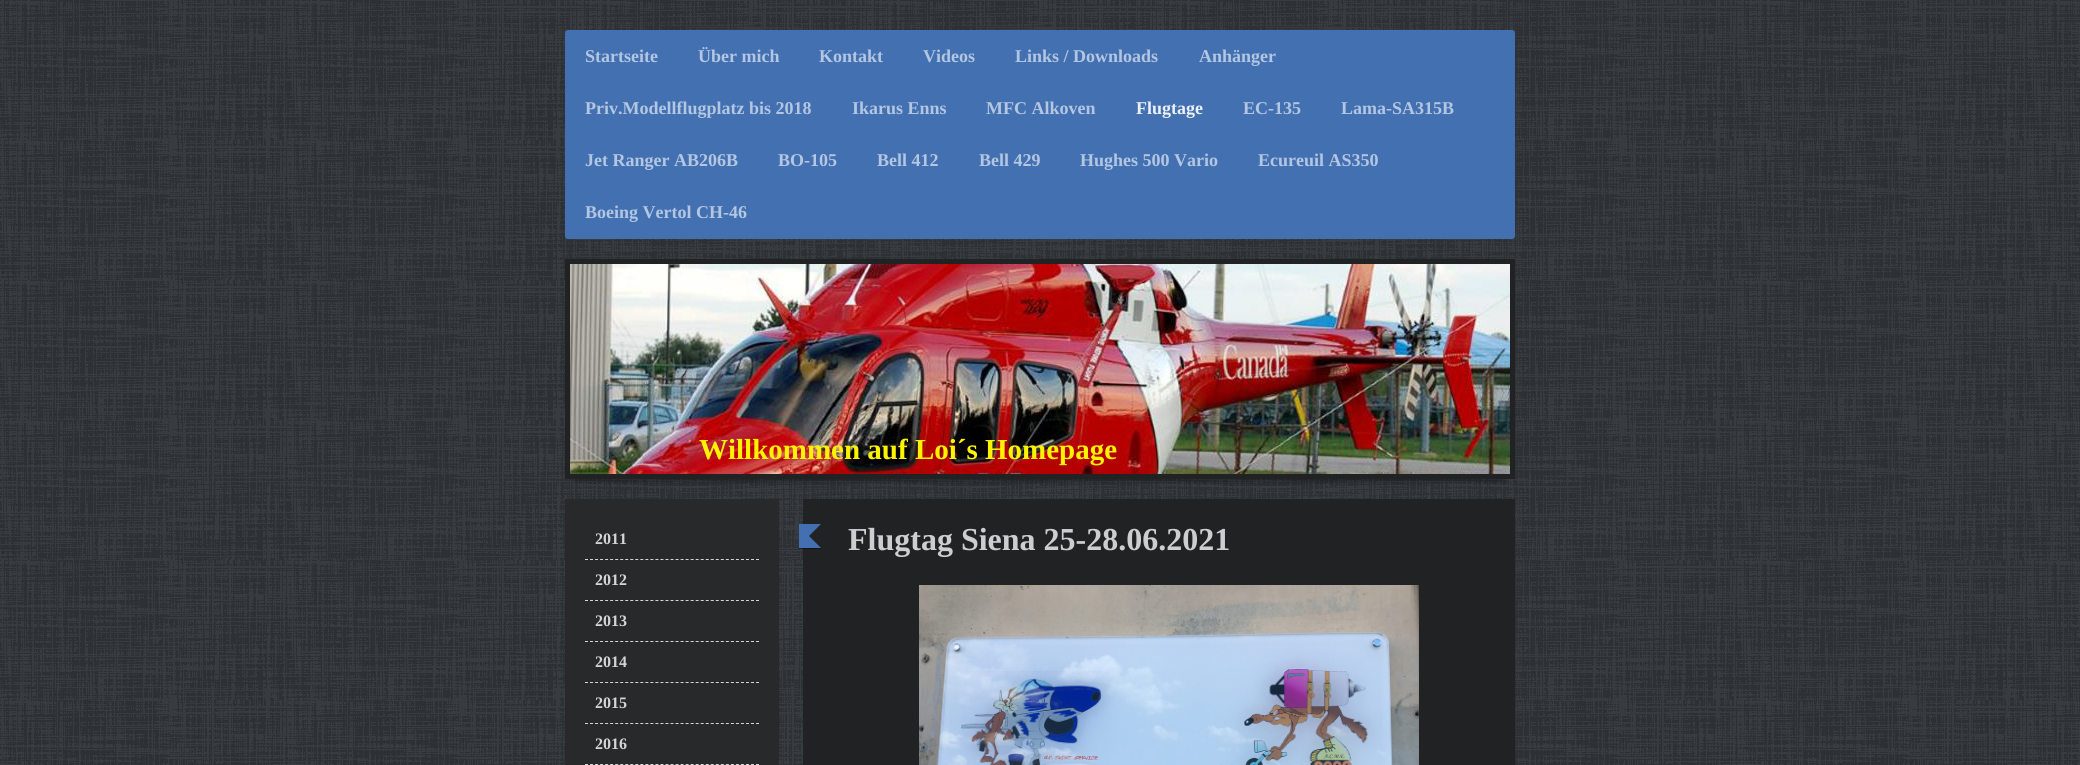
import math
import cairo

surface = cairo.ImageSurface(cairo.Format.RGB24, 2080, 765)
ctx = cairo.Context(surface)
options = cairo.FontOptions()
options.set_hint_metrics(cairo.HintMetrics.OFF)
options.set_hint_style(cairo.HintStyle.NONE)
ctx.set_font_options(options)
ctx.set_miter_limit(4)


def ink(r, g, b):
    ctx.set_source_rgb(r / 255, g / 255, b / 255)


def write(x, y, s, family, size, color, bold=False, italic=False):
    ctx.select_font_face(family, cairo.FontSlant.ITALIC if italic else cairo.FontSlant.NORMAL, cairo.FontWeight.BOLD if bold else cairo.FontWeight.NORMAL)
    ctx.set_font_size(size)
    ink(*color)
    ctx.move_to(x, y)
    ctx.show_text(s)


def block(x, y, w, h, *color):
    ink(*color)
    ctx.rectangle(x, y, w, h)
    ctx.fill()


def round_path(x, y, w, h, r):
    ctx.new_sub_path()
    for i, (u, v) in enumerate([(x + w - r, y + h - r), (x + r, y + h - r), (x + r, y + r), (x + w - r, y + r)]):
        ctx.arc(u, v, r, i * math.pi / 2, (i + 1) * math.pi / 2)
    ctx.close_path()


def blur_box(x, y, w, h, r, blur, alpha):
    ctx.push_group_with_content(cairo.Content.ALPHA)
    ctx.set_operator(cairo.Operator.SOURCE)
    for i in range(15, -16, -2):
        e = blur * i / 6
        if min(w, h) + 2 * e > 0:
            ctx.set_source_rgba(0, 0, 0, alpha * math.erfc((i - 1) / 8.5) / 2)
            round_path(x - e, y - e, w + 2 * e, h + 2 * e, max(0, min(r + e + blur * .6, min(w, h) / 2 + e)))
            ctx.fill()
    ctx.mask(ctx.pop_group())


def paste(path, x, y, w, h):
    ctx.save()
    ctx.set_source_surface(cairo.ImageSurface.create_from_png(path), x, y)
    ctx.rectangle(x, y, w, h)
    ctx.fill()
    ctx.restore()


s1 = dict(family="Liberation Serif", size=18, color=(179, 198, 226), bold=True)
s2 = dict(family="Liberation Serif", size=18, color=(236, 241, 247), bold=True)
s3 = dict(family="Liberation Serif", size=29, color=(252, 243, 2), bold=True)
s4 = dict(family="Liberation Serif", size=32, color=(205, 206, 208), bold=True)
s5 = dict(family="Liberation Serif", size=16, color=(213, 213, 214), bold=True)

ink(55, 60, 66)
ctx.paint()
paste("pic1.png", 0, 0, 2080, 765)
ink(67, 112, 177)
round_path(565, 30, 950, 209, 3)
ctx.fill()
write(585, 62, "Startseite", **s1)
write(698, 62, "Über mich", **s1)
write(819, 62, "Kontakt", **s1)
write(923, 62, "Videos", **s1)
write(1015, 62, "Links / Downloads", **s1)
write(1199, 62, "Anhänger", **s1)
write(585, 114, "Priv.Modellflugplatz bis 2018", **s1)
write(852, 114, "Ikarus Enns", **s1)
write(986, 114, "MFC Alkoven", **s1)
write(1136, 114, "Flugtage", **s2)
write(1243, 114, "EC-135", **s1)
write(1341, 114, "Lama-SA315B", **s1)
write(585, 166, "Jet Ranger AB206B", **s1)
write(778, 166, "BO-105", **s1)
write(877, 166, "Bell 412", **s1)
write(979, 166, "Bell 429", **s1)
write(1080, 166, "Hughes 500 Vario", **s1)
write(1258, 166, "Ecureuil AS350", **s1)
write(585, 218, "Boeing Vertol CH-46", **s1)
ink(0, 0, 0)
blur_box(575, 262, 930, 220, 0, 2.5, 0.3)
ctx.rectangle(567.5, 261.5, 945, 215)
ink(33, 34, 36)
ctx.set_line_width(5)
ctx.stroke()
paste("pic2.png", 570, 264, 940, 210)
write(699, 459, "Willkommen auf Loi´s Homepage", **s3)
block(565, 499, 214, 266, 40, 41, 43)
block(803, 499, 712, 266, 33, 34, 36)
ctx.set_source_rgba(0, 0, 0, 0.4)
ctx.rectangle(799, 548, 22, 1)
ctx.fill()
ink(67, 112, 177)
ctx.new_path()
ctx.move_to(799, 524)
ctx.line_to(821, 524)
ctx.line_to(809, 536)
ctx.close_path()
ctx.move_to(821, 548)
ctx.line_to(799, 548)
ctx.line_to(809, 536)
ctx.close_path()
ctx.fill()
block(799, 524, 10, 24, 67, 112, 177)
write(848, 550, "Flugtag Siena 25-28.06.2021", **s4)
paste("pic3.png", 919, 585, 500, 180)
ctx.new_path()
ctx.move_to(585, 559.5)
ctx.line_to(759, 559.5)
ink(213, 213, 214)
ctx.set_line_width(1)
ctx.set_dash([3, 2.03])
ctx.stroke()
write(595, 544, "2011", **s5)
ctx.new_path()
ctx.move_to(585, 600.5)
ctx.line_to(759, 600.5)
ctx.stroke()
write(595, 585, "2012", **s5)
ctx.new_path()
ctx.move_to(585, 641.5)
ctx.line_to(759, 641.5)
ctx.stroke()
write(595, 626, "2013", **s5)
ctx.new_path()
ctx.move_to(585, 682.5)
ctx.line_to(759, 682.5)
ctx.stroke()
write(595, 667, "2014", **s5)
ctx.new_path()
ctx.move_to(585, 723.5)
ctx.line_to(759, 723.5)
ctx.stroke()
write(595, 708, "2015", **s5)
ctx.new_path()
ctx.move_to(585, 764.5)
ctx.line_to(759, 764.5)
ctx.stroke()
write(595, 749, "2016", **s5)
surface.write_to_png("screenshot.png")
